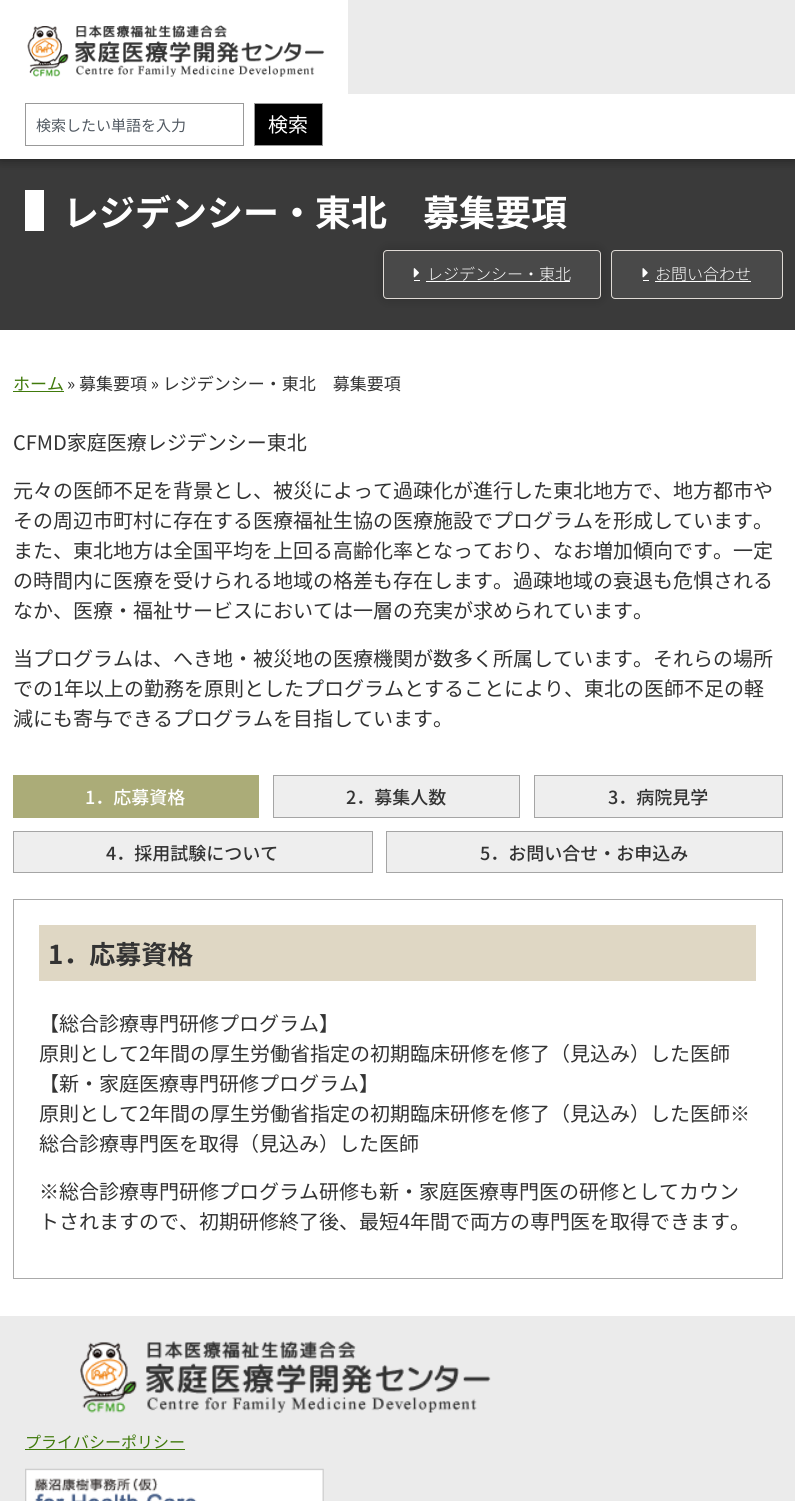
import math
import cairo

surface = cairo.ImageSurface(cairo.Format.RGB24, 795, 1501)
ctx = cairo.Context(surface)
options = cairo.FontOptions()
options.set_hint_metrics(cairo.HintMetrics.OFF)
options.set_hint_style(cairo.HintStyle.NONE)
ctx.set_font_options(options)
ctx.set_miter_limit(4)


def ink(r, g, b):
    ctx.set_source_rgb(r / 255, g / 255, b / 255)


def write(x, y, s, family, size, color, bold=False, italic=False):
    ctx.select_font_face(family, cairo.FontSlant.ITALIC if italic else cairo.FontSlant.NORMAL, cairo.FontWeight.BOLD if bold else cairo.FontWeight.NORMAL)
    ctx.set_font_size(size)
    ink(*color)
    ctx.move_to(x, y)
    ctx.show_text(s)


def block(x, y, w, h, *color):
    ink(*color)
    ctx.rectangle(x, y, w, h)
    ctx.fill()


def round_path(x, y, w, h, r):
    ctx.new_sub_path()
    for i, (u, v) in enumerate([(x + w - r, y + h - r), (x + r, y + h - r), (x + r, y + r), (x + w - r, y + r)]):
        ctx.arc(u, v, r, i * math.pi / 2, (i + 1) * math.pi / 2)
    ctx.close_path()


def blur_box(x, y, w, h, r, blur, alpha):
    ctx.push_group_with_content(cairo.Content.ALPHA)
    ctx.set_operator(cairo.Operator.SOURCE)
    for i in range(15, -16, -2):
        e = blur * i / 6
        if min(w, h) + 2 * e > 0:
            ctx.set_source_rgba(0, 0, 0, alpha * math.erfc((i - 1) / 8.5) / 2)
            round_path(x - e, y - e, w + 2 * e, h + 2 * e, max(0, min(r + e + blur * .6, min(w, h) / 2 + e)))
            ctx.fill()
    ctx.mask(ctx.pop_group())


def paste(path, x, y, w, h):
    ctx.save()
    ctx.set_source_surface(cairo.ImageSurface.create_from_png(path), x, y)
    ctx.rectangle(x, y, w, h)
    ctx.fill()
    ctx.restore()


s1 = dict(family="Noto Sans JP", size=15, color=(81, 89, 98))
s2 = dict(family="Noto Sans JP", size=20, color=(255, 255, 255))
s3 = dict(family="Noto Sans JP", size=36, color=(255, 255, 255), bold=True)
s4 = dict(family="Noto Sans JP Light", size=16, color=(255, 255, 255))
s5 = dict(family="Noto Sans JP", size=17, color=(64, 122, 11))
s6 = dict(family="Noto Sans JP", size=17, color=(51, 51, 51))
s7 = dict(family="Noto Sans JP", size=20, color=(51, 51, 51))
s8 = dict(family="Noto Sans JP Medium", size=18, color=(255, 255, 255))
s9 = dict(family="Noto Sans JP Medium", size=18, color=(51, 51, 51))
s10 = dict(family="Noto Sans JP", size=26, color=(51, 51, 51), bold=True)
s11 = dict(family="Noto Sans JP", size=16, color=(64, 122, 11))

ink(255, 255, 255)
ctx.paint()
block(0, 159, 795, 171, 58, 58, 58)
ink(0, 0, 0)
blur_box(0, 0, 795, 159, 0, 6, 0.5)
block(0, 0, 795, 159, 255, 255, 255)
block(348, 0, 447, 94, 235, 235, 235)
paste("pic1.png", 27, 25, 298, 52)
ctx.rectangle(25.5, 103.5, 218, 42)
ink(153, 153, 153)
ctx.set_line_width(1)
ctx.stroke()
write(36, 131, "検索したい単語を入力", **s1)
ink(0, 0, 0)
ctx.rectangle(254.5, 103.5, 68, 42)
ctx.fill_preserve()
ink(153, 153, 153)
ctx.stroke()
write(268, 132, "検索", **s2)
block(25, 190, 19, 41, 255, 255, 255)
write(63, 226, "レジデンシー・東北　募集要項", **s3)
ink(0, 0, 0)
blur_box(383, 250, 218, 49, 4, 6, 0.2)
ink(73, 73, 73)
round_path(383.5, 250.5, 217, 48, 3.5)
ctx.fill_preserve()
ink(223, 218, 213)
ctx.stroke()
paste("pic2.png", 413, 268, 6, 10)
block(414, 280, 6, 1, 255, 255, 255)
block(426, 281, 144, 1, 255, 255, 255)
write(427, 280, "レジデンシー・東北", **s4)
ctx.set_source_rgba(0.302, 0.302, 0.302, 0.8)
round_path(611.5, 250.5, 171, 48, 3.5)
ctx.fill_preserve()
ink(223, 218, 213)
ctx.stroke()
paste("pic3.png", 642, 268, 6, 10)
block(643, 280, 6, 1, 255, 255, 255)
block(655, 281, 96, 1, 255, 255, 255)
write(655, 280, "お問い合わせ", **s4)
write(13, 390, "ホーム", **s5)
block(13, 391, 51, 1, 64, 122, 11)
write(67, 390, "» 募集要項 » レジデンシー・東北　募集要項", **s6)
write(13, 450, "CFMD家庭医療レジデンシー東北", **s7)
write(13, 498, "元々の医師不足を背景とし、被災によって過疎化が進行した東北地方で、地方都市や", **s7)
write(13, 528, "その周辺市町村に存在する医療福祉生協の医療施設でプログラムを形成しています。", **s7)
write(13, 558, "また、東北地方は全国平均を上回る高齢化率となっており、なお増加傾向です。一定", **s7)
write(13, 588, "の時間内に医療を受けられる地域の格差も存在します。過疎地域の衰退も危惧される", **s7)
write(13, 618, "なか、医療・福祉サービスにおいては一層の充実が求められています。", **s7)
write(13, 666, "当プログラムは、へき地・被災地の医療機関が数多く所属しています。それらの場所", **s7)
write(13, 696, "での1年以上の勤務を原則としたプログラムとすることにより、東北の医師不足の軽", **s7)
write(13, 726, "減にも寄与できるプログラムを目指しています。", **s7)
block(13, 775, 246, 43, 171, 172, 120)
write(85, 804, "1．応募資格", **s8)
ink(238, 238, 238)
ctx.rectangle(273.5, 775.5, 246, 42)
ctx.fill_preserve()
ink(165, 165, 165)
ctx.stroke()
write(346, 804, "2．募集人数", **s9)
ink(238, 238, 238)
ctx.rectangle(534.5, 775.5, 248, 42)
ctx.fill_preserve()
ink(165, 165, 165)
ctx.stroke()
write(608, 804, "3．病院見学", **s9)
ink(238, 238, 238)
ctx.rectangle(13.5, 831.5, 359, 41)
ctx.fill_preserve()
ink(165, 165, 165)
ctx.stroke()
write(106, 860, "4．採用試験について", **s9)
ink(238, 238, 238)
ctx.rectangle(386.5, 831.5, 396, 41)
ctx.fill_preserve()
ink(165, 165, 165)
ctx.stroke()
write(480, 860, "5．お問い合せ・お申込み", **s9)
ctx.rectangle(13.5, 899.5, 769, 379)
ink(170, 170, 170)
ctx.stroke()
block(39, 925, 717, 56, 223, 215, 196)
write(48, 964, "1．応募資格", **s10)
write(39, 1031, "【総合診療専門研修プログラム】", **s7)
write(39, 1061, "原則として2年間の厚生労働省指定の初期臨床研修を修了（見込み）した医師", **s7)
write(39, 1091, "【新・家庭医療専門研修プログラム】", **s7)
write(39, 1121, "原則として2年間の厚生労働省指定の初期臨床研修を修了（見込み）した医師※", **s7)
write(39, 1151, "総合診療専門医を取得（見込み）した医師", **s7)
write(39, 1199, "※総合診療専門研修プログラム研修も新・家庭医療専門医の研修としてカウン", **s7)
write(39, 1229, "トされますので、初期研修終了後、最短4年間で両方の専門医を取得できます。", **s7)
block(0, 1316, 795, 185, 235, 235, 235)
paste("pic4.png", 80, 1341, 411, 72)
write(25, 1448, "プライバシーポリシー", **s11)
block(25, 1449, 160, 1, 64, 122, 11)
paste("pic5.png", 25, 1468, 299, 33)
surface.write_to_png("screenshot.png")
